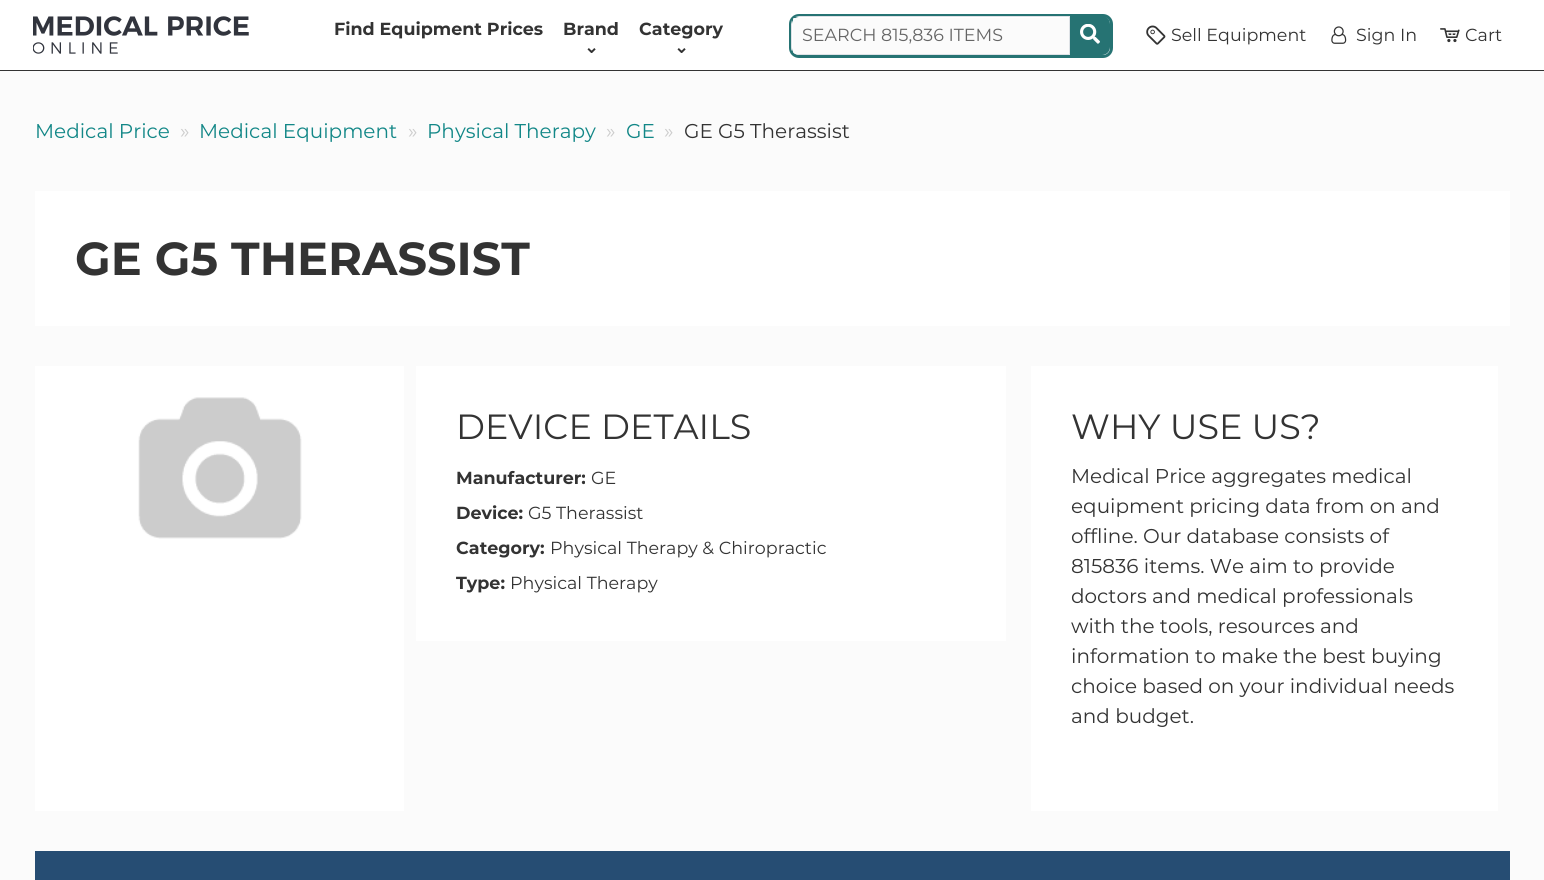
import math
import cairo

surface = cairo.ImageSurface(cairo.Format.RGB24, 1544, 880)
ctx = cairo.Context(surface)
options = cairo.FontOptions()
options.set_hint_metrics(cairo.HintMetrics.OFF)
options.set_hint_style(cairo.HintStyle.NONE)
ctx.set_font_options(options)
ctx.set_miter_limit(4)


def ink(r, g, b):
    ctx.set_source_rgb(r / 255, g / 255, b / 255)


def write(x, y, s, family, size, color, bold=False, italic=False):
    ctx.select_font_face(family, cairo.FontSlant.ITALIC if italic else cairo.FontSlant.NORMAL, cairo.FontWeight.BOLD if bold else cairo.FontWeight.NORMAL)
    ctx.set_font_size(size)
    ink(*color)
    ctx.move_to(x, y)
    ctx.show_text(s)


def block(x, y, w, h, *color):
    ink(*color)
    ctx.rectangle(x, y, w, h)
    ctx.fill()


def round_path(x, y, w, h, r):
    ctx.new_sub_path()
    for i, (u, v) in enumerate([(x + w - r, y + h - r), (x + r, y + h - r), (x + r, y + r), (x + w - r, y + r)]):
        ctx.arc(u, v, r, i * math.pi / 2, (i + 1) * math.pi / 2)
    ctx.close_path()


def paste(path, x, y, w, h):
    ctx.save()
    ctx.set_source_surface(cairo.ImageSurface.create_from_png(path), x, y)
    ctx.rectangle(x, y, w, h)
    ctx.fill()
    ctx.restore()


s1 = dict(family="Montserrat", size=17.5, color=(51, 51, 51), bold=True)
s2 = dict(family="DejaVu Sans", size=17.5, color=(51, 51, 51), bold=True)
s3 = dict(family="Montserrat", size=17.5, color=(101, 101, 101))
s4 = dict(family="Montserrat", size=17.5, color=(51, 51, 51))
s5 = dict(family="Montserrat", size=20, color=(18, 135, 135))
s6 = dict(family="Montserrat", size=20, color=(204, 204, 204))
s7 = dict(family="Montserrat", size=20, color=(51, 51, 51))
s8 = dict(family="Montserrat", size=46.25, color=(51, 51, 51), bold=True)
s9 = dict(family="Montserrat", size=35, color=(51, 51, 51))

ink(251, 251, 251)
ctx.paint()
block(0, 0, 1544, 70, 255, 255, 255)
block(0, 70, 1544, 1, 51, 51, 51)
paste("pic1.png", 33, 16, 216, 38)
write(334, 35, "Find Equipment Prices", **s1)
write(563, 35, "Brand", **s1)
write(584, 53, "⌄", **s2)
write(639, 35, "Category", **s1)
write(674, 53, "⌄", **s2)
round_path(790.5, 15.5, 321, 41, 8.5)
ink(38, 115, 115)
ctx.set_line_width(3)
ctx.stroke()
ctx.save()
round_path(791, 16, 319, 39, 8)
ctx.clip()
block(793, 18, 276, 36, 251, 251, 251)
ctx.restore()
ink(222, 226, 230)
ctx.set_fill_rule(cairo.FillRule.EVEN_ODD)
ctx.new_path()
ctx.move_to(791, 24)
ctx.line_to(791, 47)
ctx.curve_to(791, 48, 791, 50, 792, 51)
ctx.line_to(792, 20)
ctx.close_path()
ctx.move_to(799, 16)
ctx.line_to(795, 17)
ctx.line_to(1069, 17)
ctx.line_to(1069, 54)
ctx.line_to(795, 54)
ctx.line_to(799, 55)
ctx.line_to(1070, 55)
ctx.line_to(1070, 16)
ctx.close_path()
ctx.fill()
write(802, 41, "SEARCH 815,836 ITEMS", **s3)
ink(38, 115, 115)
ctx.new_path()
ctx.move_to(1070, 16)
ctx.line_to(1102, 16)
ctx.curve_to(1106.5, 16, 1110, 19.5, 1110, 24)
ctx.line_to(1110, 47)
ctx.curve_to(1110, 51.5, 1106.5, 55, 1102, 55)
ctx.line_to(1070, 55)
ctx.close_path()
ctx.fill()
paste("pic2.png", 1080, 24, 20, 20)
paste("pic3.png", 1146, 25, 20, 20)
write(1171, 41, "Sell Equipment", **s4)
paste("pic4.png", 1331, 26, 16, 18)
write(1356, 41, "Sign In", **s4)
paste("pic5.png", 1440, 28, 20, 15)
write(1465, 41, "Cart", **s4)
write(35, 138, "Medical Price", **s5)
write(180, 138, "»", **s6)
write(199, 138, "Medical Equipment", **s5)
write(408, 138, "»", **s6)
write(427, 138, "Physical Therapy", **s5)
write(606, 138, "»", **s6)
write(626, 138, "GE", **s5)
write(664, 138, "»", **s6)
write(684, 138, "GE G5 Therassist", **s7)
block(35, 191, 1475, 135, 255, 255, 255)
write(75, 275, "GE G5 THERASSIST", **s8)
block(35, 366, 369, 445, 255, 255, 255)
paste("pic6.png", 138, 397, 164, 142)
block(416, 366, 590, 275, 255, 255, 255)
write(456, 439, "DEVICE DETAILS", **s9)
write(456, 484, "Manufacturer:", **s1)
write(591, 484, "GE", **s4)
write(456, 519, "Device:", **s1)
write(528, 519, "G5 Therassist", **s4)
write(456, 554, "Category:", **s1)
write(550, 554, "Physical Therapy & Chiropractic", **s4)
write(456, 589, "Type:", **s1)
write(510, 589, "Physical Therapy", **s4)
block(1031, 366, 467, 445, 255, 255, 255)
write(1071, 439, "WHY USE US?", **s9)
write(1071, 483, "Medical Price aggregates medical", **s7)
write(1071, 513, "equipment pricing data from on and", **s7)
write(1071, 543, "offline. Our database consists of", **s7)
write(1071, 573, "815836 items. We aim to provide", **s7)
write(1071, 603, "doctors and medical professionals", **s7)
write(1071, 633, "with the tools, resources and", **s7)
write(1071, 663, "information to make the best buying", **s7)
write(1071, 693, "choice based on your individual needs", **s7)
write(1071, 723, "and budget.", **s7)
block(35, 851, 1475, 29, 38, 77, 115)
surface.write_to_png("screenshot.png")
